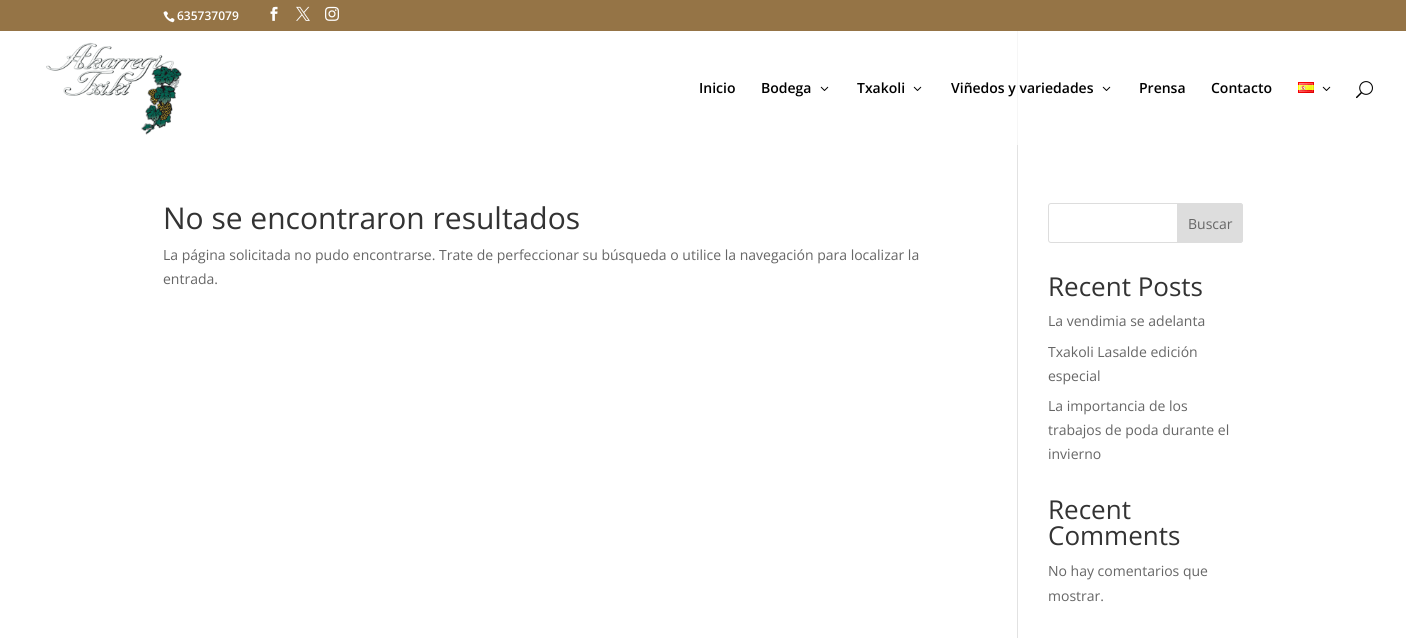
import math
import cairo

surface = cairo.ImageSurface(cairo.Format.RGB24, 1406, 638)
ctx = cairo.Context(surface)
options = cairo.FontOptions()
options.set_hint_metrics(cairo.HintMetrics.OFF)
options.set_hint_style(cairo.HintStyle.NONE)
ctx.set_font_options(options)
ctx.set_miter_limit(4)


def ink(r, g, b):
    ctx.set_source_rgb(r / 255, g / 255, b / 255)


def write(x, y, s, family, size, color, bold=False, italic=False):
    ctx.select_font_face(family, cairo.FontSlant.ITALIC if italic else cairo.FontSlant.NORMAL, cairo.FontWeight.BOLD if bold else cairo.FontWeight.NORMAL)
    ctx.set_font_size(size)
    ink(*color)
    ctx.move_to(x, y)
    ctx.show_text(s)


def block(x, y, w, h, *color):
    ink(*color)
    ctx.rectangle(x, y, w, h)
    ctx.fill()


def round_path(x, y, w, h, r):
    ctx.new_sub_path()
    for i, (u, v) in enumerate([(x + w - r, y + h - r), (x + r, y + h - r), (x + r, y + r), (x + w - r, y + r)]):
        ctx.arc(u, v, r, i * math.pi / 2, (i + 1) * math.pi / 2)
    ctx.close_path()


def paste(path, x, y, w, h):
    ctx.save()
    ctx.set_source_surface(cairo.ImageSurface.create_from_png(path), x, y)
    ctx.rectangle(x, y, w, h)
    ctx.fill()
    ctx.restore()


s1 = dict(family="Open Sans SemiBold", size=12, color=(255, 255, 255))
s2 = dict(family="Open Sans SemiBold", size=14, color=(0, 0, 0))
s3 = dict(family="Open Sans", size=30, color=(51, 51, 51))
s4 = dict(family="Open Sans", size=14, color=(102, 102, 102))
s5 = dict(family="Open Sans", size=26, color=(51, 51, 51))

ink(255, 255, 255)
ctx.paint()
block(0, 0, 1406, 31, 149, 116, 70)
paste("pic1.png", 163, 11, 12, 12)
write(177, 20, "635737079", **s1)
paste("pic2.png", 270, 6, 8, 15)
paste("pic3.png", 296, 6, 14, 15)
paste("pic4.png", 325, 6, 14, 15)
paste("pic5.png", 46, 42, 136, 93)
write(699, 93, "Inicio", **s2)
write(761, 93, "Bodega", **s2)
paste("pic6.png", 820, 86, 9, 5)
write(857, 93, "Txakoli", **s2)
paste("pic6.png", 913, 86, 9, 5)
block(1017, 31, 1, 114, 246, 246, 246)
write(951, 93, "Viñedos y variedades", **s2)
paste("pic6.png", 1102, 86, 9, 5)
write(1139, 93, "Prensa", **s2)
write(1211, 93, "Contacto", **s2)
paste("pic7.png", 1298, 82, 16, 11)
paste("pic6.png", 1322, 86, 9, 5)
paste("pic8.png", 1356, 81, 17, 18)
block(1017, 145, 1, 493, 226, 226, 226)
write(163, 229, "No se encontraron resultados", **s3)
write(163, 260, "La página solicitada no pudo encontrarse. Trate de perfeccionar su búsqueda o utilice la navegación para localizar la", **s4)
write(163, 284, "entrada.", **s4)
round_path(1048.5, 203.5, 194, 39, 2.5)
ink(221, 221, 221)
ctx.set_line_width(1)
ctx.stroke()
ctx.new_path()
ctx.move_to(1177.5, 203.5)
ctx.line_to(1240, 203.5)
ctx.curve_to(1241.5, 203.5, 1242.5, 204.5, 1242.5, 206)
ctx.line_to(1242.5, 240)
ctx.curve_to(1242.5, 241.5, 1241.5, 242.5, 1240, 242.5)
ctx.line_to(1177.5, 242.5)
ctx.close_path()
ctx.fill_preserve()
ctx.stroke()
write(1188, 229, "Buscar", **s4)
write(1048, 296, "Recent Posts", **s5)
write(1048, 326, "La vendimia se adelanta", **s4)
write(1048, 357, "Txakoli Lasalde edición", **s4)
write(1048, 381, "especial", **s4)
write(1048, 411, "La importancia de los", **s4)
write(1048, 435, "trabajos de poda durante el", **s4)
write(1048, 459, "invierno", **s4)
write(1048, 519, "Recent", **s5)
write(1048, 545, "Comments", **s5)
write(1048, 576, "No hay comentarios que", **s4)
write(1048, 601, "mostrar.", **s4)
surface.write_to_png("screenshot.png")
